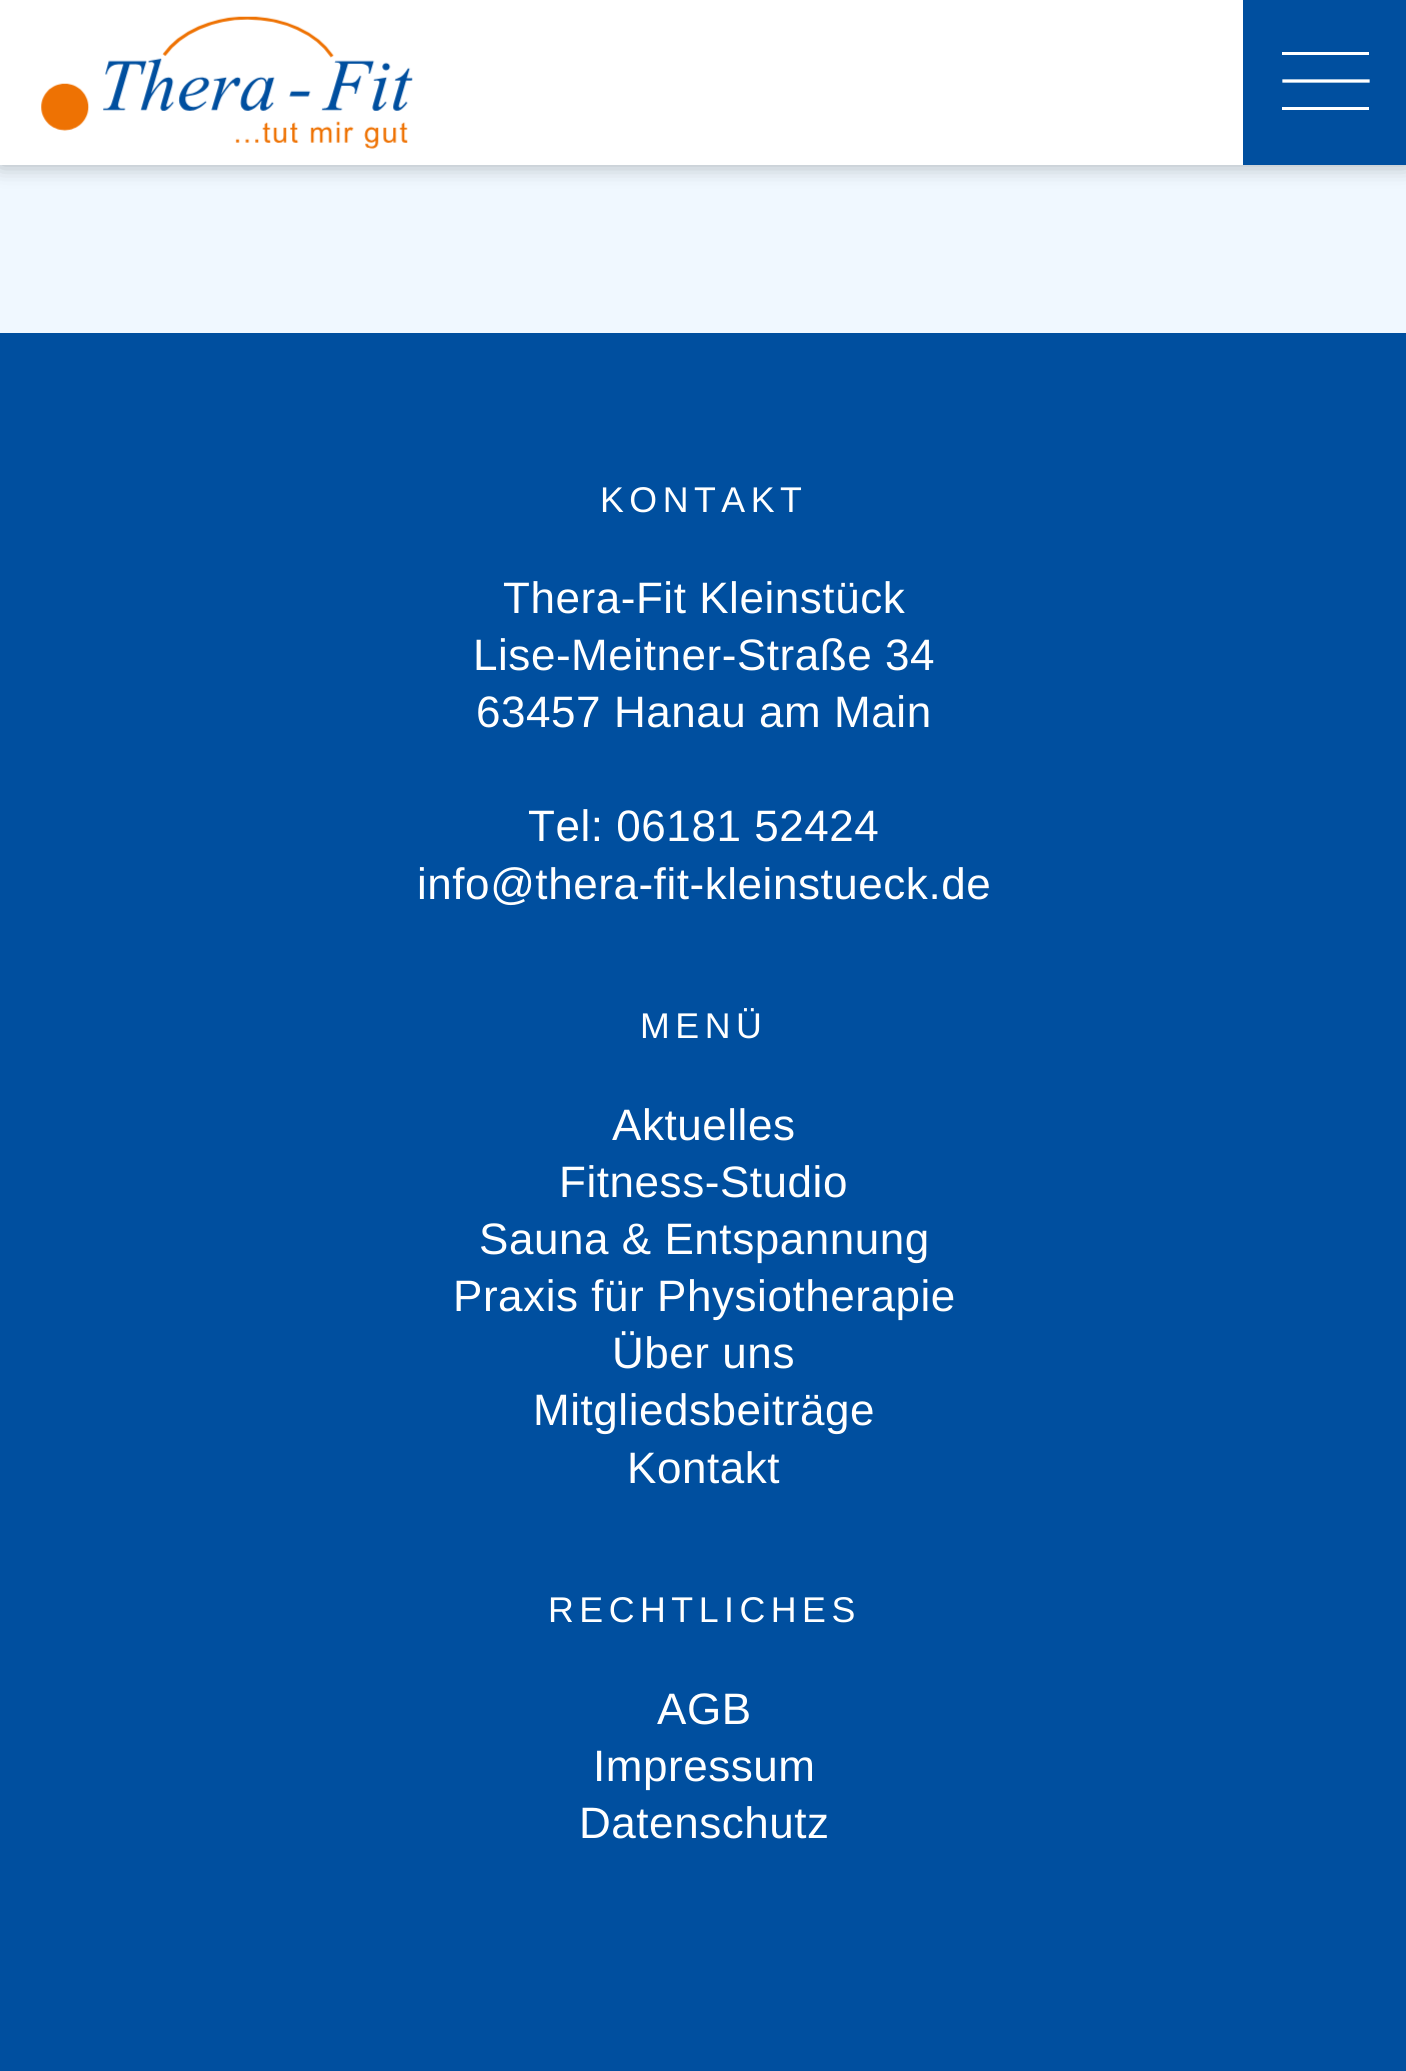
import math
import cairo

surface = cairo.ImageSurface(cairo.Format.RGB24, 1406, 2071)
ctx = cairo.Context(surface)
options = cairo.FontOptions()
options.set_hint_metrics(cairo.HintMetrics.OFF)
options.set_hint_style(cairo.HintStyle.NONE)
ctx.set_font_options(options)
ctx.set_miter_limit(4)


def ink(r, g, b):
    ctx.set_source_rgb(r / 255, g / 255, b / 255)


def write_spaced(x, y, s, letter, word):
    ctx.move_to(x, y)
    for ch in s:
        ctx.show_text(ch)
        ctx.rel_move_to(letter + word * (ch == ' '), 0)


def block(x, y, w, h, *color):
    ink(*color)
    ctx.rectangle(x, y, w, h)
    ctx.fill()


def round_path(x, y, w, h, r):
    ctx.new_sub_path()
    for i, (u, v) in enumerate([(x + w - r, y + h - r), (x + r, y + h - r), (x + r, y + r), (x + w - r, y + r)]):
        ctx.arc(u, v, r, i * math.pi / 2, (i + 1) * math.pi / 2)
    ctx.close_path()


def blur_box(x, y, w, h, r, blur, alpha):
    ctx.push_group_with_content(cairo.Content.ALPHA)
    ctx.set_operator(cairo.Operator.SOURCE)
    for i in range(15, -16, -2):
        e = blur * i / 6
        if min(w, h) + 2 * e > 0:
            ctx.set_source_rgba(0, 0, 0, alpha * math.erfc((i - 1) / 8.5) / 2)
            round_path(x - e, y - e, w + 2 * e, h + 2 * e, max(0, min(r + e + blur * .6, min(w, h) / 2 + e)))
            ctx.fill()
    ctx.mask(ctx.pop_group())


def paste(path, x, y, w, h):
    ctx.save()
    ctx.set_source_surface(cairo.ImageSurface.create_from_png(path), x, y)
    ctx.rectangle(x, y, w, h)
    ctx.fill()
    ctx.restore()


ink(240, 248, 255)
ctx.paint()
ink(0, 0, 0)
blur_box(0, 0, 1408, 165, 0, 11, 0.3)
block(0, 0, 1243, 165, 255, 255, 255)
paste("pic1.png", 41, 16, 372, 133)
block(1243, 0, 163, 165, 0, 79, 159)
block(1282, 52, 87, 3, 255, 255, 255)
ctx.new_path()
ctx.move_to(1284, 81)
ctx.line_to(1368, 81)
ctx.set_line_width(3.3)
ctx.set_line_cap(cairo.LineCap.SQUARE)
ctx.stroke()
block(1282, 107, 87, 3, 255, 255, 255)
block(0, 333, 1406, 1738, 0, 79, 159)
ctx.select_font_face("Liberation Sans")
ctx.set_font_size(35.75)
ink(255, 255, 255)
write_spaced(600, 512, "KONTAKT", 5.5, 0)
ctx.set_font_size(44)
write_spaced(503, 613, "Thera-Fit Kleinstück", 0.55, 0)
write_spaced(473, 670, "Lise-Meitner-Straße 34", 0.55, 0)
write_spaced(476, 727, "63457 Hanau am Main", 0.55, 0)
write_spaced(528, 841, "Tel: 06181 52424", 0.55, 0)
write_spaced(417, 899, "info@thera-fit-kleinstueck.de", 0.55, 0)
ctx.set_font_size(35.75)
write_spaced(640, 1038, "MENÜ", 5.5, 0)
ctx.set_font_size(44)
write_spaced(612, 1140, "Aktuelles", 0.55, 0)
write_spaced(559, 1197, "Fitness-Studio", 0.55, 0)
write_spaced(479, 1254, "Sauna & Entspannung", 0.55, 0)
write_spaced(453, 1311, "Praxis für Physiotherapie", 0.55, 0)
write_spaced(612, 1368, "Über uns", 0.55, 0)
write_spaced(533, 1425, "Mitgliedsbeiträge", 0.55, 0)
write_spaced(627, 1483, "Kontakt", 0.55, 0)
ctx.set_font_size(35.75)
write_spaced(548, 1622, "RECHTLICHES", 5.5, 0)
ctx.set_font_size(44)
write_spaced(657, 1724, "AGB", 0.55, 0)
write_spaced(593, 1781, "Impressum", 0.55, 0)
write_spaced(579, 1838, "Datenschutz", 0.55, 0)
surface.write_to_png("screenshot.png")
